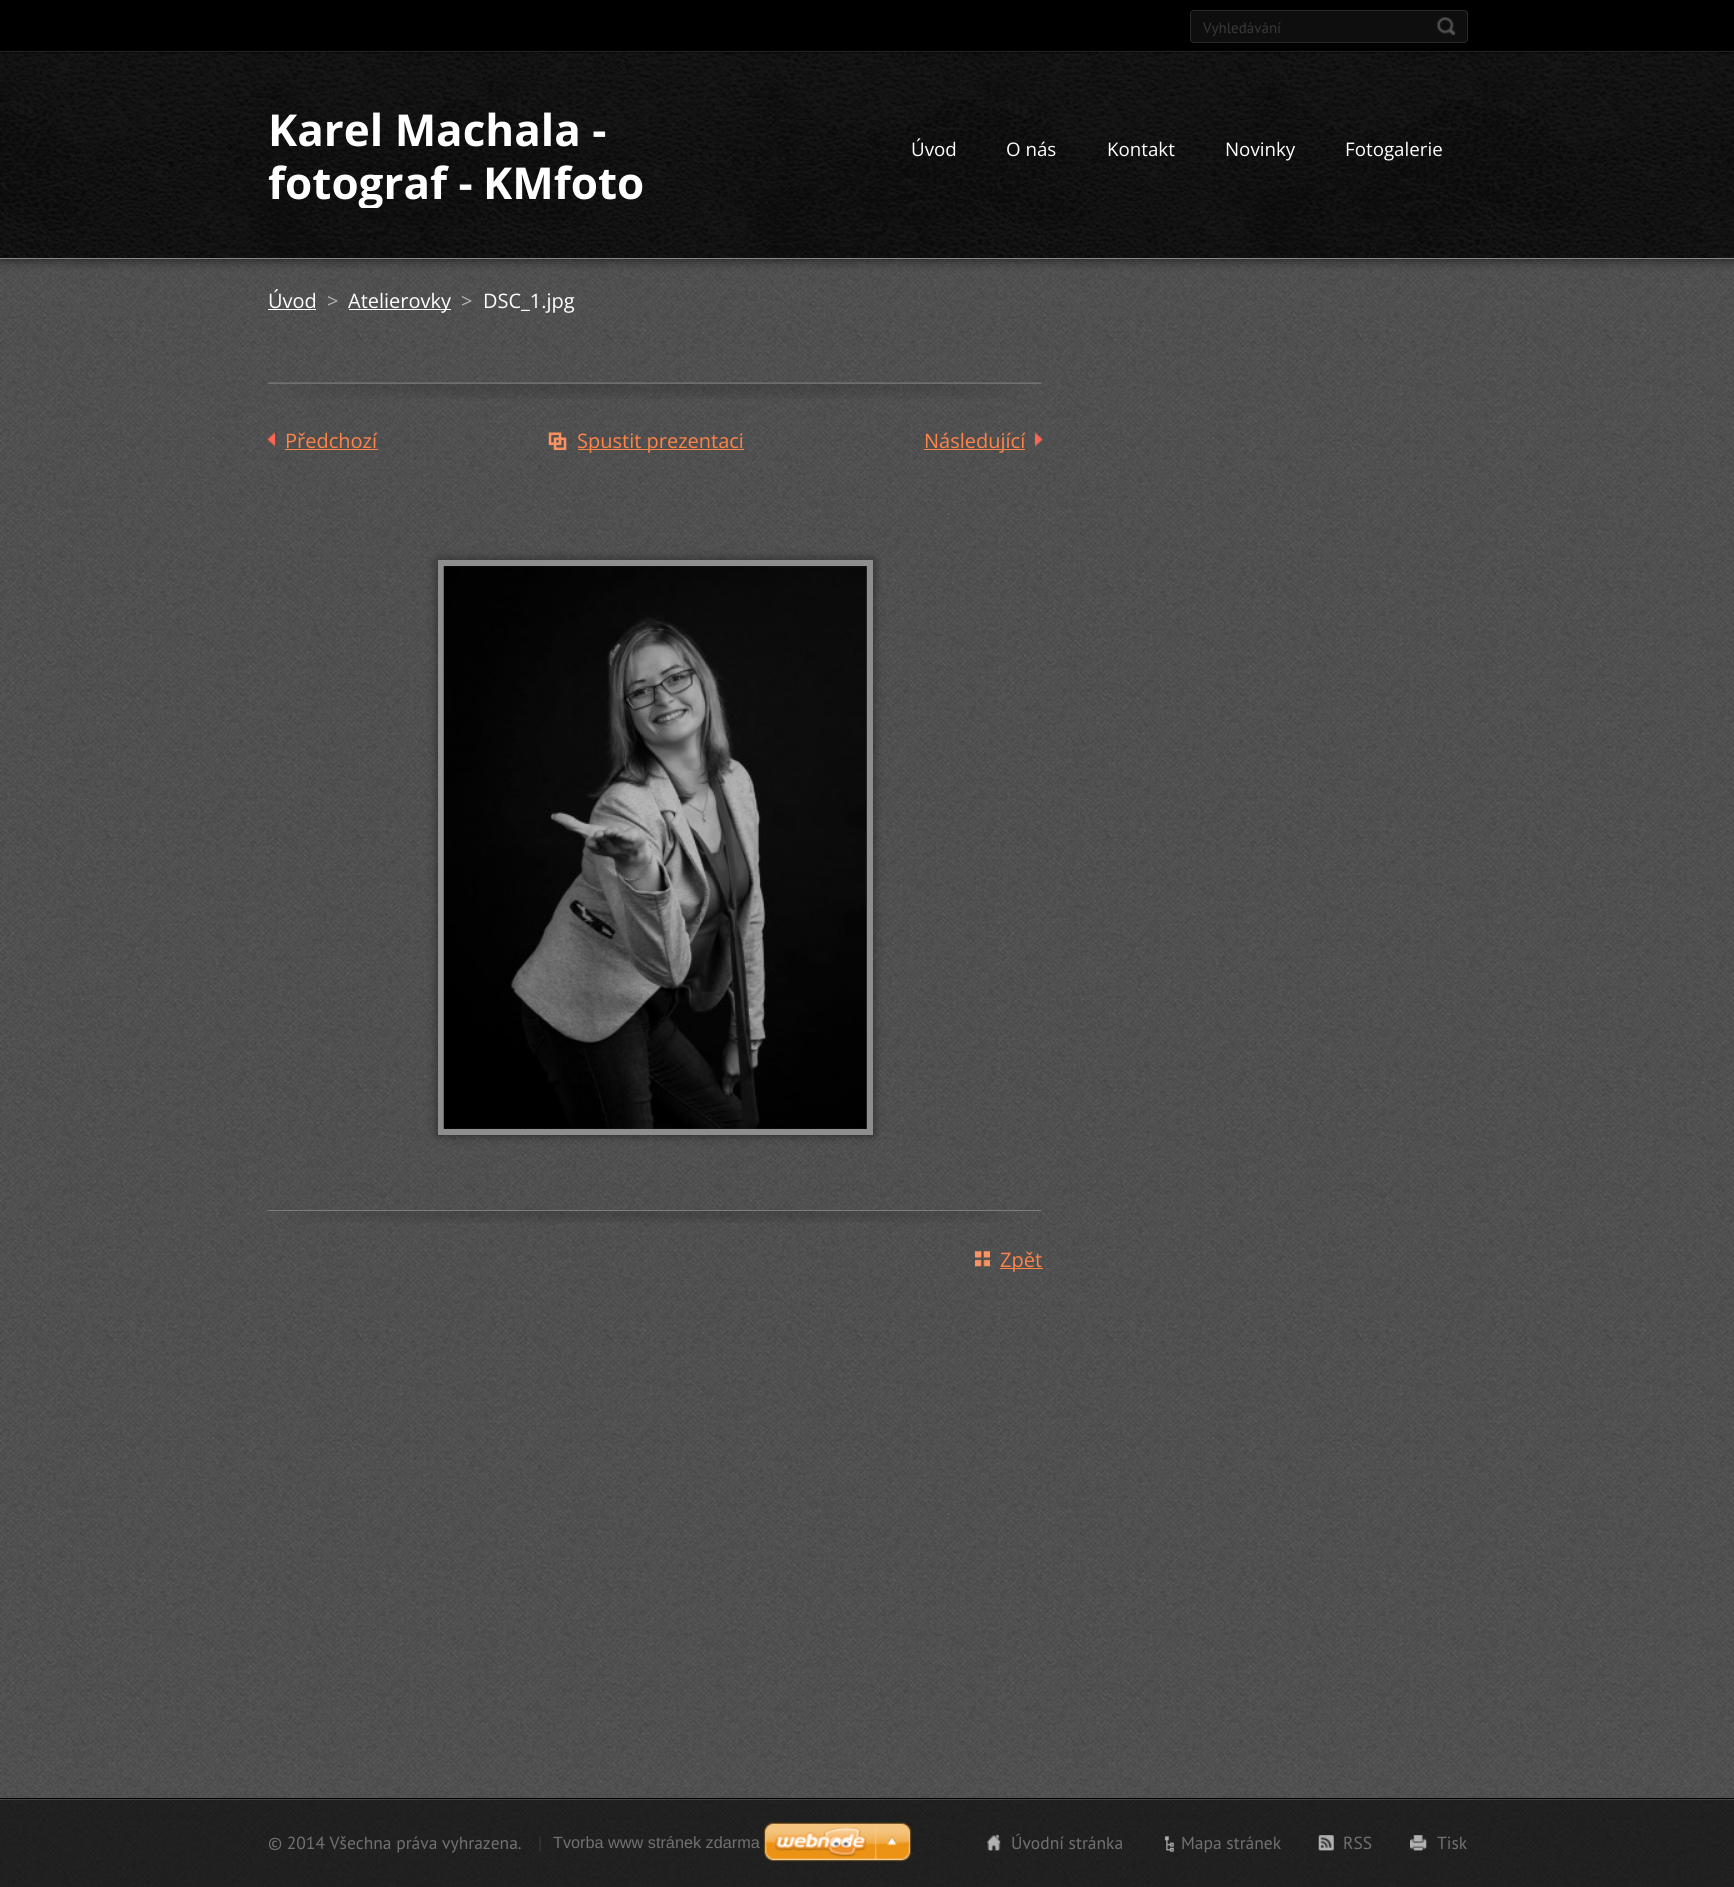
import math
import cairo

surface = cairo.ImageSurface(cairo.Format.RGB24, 1734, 1887)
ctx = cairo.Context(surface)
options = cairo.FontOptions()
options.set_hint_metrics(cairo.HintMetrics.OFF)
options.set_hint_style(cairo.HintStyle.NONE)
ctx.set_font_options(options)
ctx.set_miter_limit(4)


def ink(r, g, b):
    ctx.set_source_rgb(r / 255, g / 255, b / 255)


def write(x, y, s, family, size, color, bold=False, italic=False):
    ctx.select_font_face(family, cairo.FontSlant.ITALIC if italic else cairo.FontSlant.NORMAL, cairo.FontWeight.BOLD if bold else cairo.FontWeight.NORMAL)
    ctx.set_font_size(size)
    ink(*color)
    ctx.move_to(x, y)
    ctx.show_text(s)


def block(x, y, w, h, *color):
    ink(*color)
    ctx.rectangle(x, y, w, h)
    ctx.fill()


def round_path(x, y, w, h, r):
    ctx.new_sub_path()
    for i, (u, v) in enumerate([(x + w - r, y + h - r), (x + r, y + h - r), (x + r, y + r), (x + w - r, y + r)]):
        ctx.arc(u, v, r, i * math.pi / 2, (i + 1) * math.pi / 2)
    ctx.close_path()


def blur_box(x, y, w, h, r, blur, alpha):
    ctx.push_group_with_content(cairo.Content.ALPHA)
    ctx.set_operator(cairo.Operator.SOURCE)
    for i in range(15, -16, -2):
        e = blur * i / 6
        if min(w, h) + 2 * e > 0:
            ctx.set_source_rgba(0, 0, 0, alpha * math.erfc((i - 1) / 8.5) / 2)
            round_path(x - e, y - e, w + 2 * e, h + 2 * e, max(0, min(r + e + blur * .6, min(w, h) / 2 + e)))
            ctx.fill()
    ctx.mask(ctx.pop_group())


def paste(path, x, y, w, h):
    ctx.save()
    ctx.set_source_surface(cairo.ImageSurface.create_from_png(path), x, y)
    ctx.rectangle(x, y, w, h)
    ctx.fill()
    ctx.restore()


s1 = dict(family="PT Sans", size=15, color=(56, 56, 56))
s2 = dict(family="Open Sans", size=44, color=(255, 255, 255), bold=True)
s3 = dict(family="Open Sans", size=18.75, color=(255, 255, 255))
s4 = dict(family="Open Sans", size=20, color=(255, 255, 255))
s5 = dict(family="Open Sans", size=20, color=(179, 179, 179))
s6 = dict(family="Open Sans", size=20, color=(255, 132, 74))
s7 = dict(family="PT Sans", size=17.5, color=(113, 113, 113))
s8 = dict(family="PT Sans", size=17.5, color=(56, 56, 56))
s9 = dict(family="Liberation Sans", size=16.25, color=(113, 113, 113))

ink(255, 255, 255)
ctx.paint()
paste("pic1.png", 0, 259, 1734, 1628)
block(0, 0, 1734, 53, 0, 0, 0)
block(0, 51, 1734, 1, 48, 48, 48)
ink(0, 0, 0)
blur_box(0, 53, 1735, 206, 0, 6, 0.7)
ink(14, 14, 14)
round_path(1190.5, 10.5, 277, 32, 3.5)
ctx.fill_preserve()
ink(41, 41, 41)
ctx.set_line_width(1)
ctx.stroke()
write(1203, 33, "Vyhledávání", **s1)
paste("pic2.png", 1437, 17, 19, 19)
paste("pic3.png", 0, 52, 1734, 206)
block(0, 258, 1734, 1, 138, 138, 138)
write(268, 146, "Karel Machala -", **s2)
ctx.save()
ctx.rectangle(268, 103, 420, 105)
ctx.clip()
write(268, 199, "fotograf -", **s2)
ctx.restore()
write(483, 199, "KMfoto", **s2)
write(911, 156, "Úvod", **s3)
write(1006, 156, "O nás", **s3)
write(1107, 156, "Kontakt", **s3)
write(1225, 156, "Novinky", **s3)
write(1345, 156, "Fotogalerie", **s3)
write(268, 308, "Úvod", **s4)
block(268, 309, 48, 1, 255, 255, 255)
write(327, 308, ">", **s5)
block(349, 309, 102, 1, 255, 255, 255)
write(348, 308, "Atelierovky", **s4)
write(461, 308, ">", **s5)
write(483, 308, "DSC_1.jpg", **s4)
paste("pic4.png", 267, 382, 775, 17)
paste("pic5.png", 267, 432, 8, 15)
write(285, 448, "Předchozí", **s6)
block(285, 449, 93, 1, 255, 132, 74)
paste("pic6.png", 548, 432, 19, 18)
block(578, 449, 166, 1, 255, 132, 74)
write(577, 448, "Spustit prezentaci", **s6)
paste("pic7.png", 1035, 432, 8, 15)
block(924, 449, 101, 1, 255, 132, 74)
write(924, 448, "Následující", **s6)
paste("pic8.png", 267, 1210, 775, 13)
ink(0, 0, 0)
blur_box(438, 560, 435, 575, 0, 5, 0.5)
ctx.rectangle(441, 563, 429, 569)
ink(142, 142, 142)
ctx.set_line_width(6)
ctx.stroke()
paste("pic9.png", 443, 566, 424, 563)
paste("pic10.png", 975, 1251, 15, 16)
block(1000, 1268, 43, 1, 255, 132, 74)
write(1000, 1267, "Zpět", **s6)
block(0, 1798, 1734, 1, 0, 0, 0)
ctx.set_source_rgba(0, 0, 0, 0.6)
ctx.rectangle(0, 1800, 1734, 87)
ctx.fill()
block(0, 1799, 1734, 1, 70, 70, 70)
write(268, 1849, "© 2014 Všechna práva vyhrazena.", **s7)
write(538, 1849, "|", **s8)
paste("pic11.png", 987, 1834, 14, 17)
write(1011, 1849, "Úvodní stránka", **s7)
paste("pic12.png", 1164, 1836, 10, 16)
write(1181, 1849, "Mapa stránek", **s7)
paste("pic13.png", 1318, 1835, 16, 16)
write(1343, 1849, "RSS", **s7)
paste("pic14.png", 1410, 1835, 17, 16)
write(1437, 1849, "Tisk", **s7)
write(553, 1848, "Tvorba www stránek zdarma", **s9)
paste("pic15.png", 763, 1822, 149, 40)
surface.write_to_png("screenshot.png")
